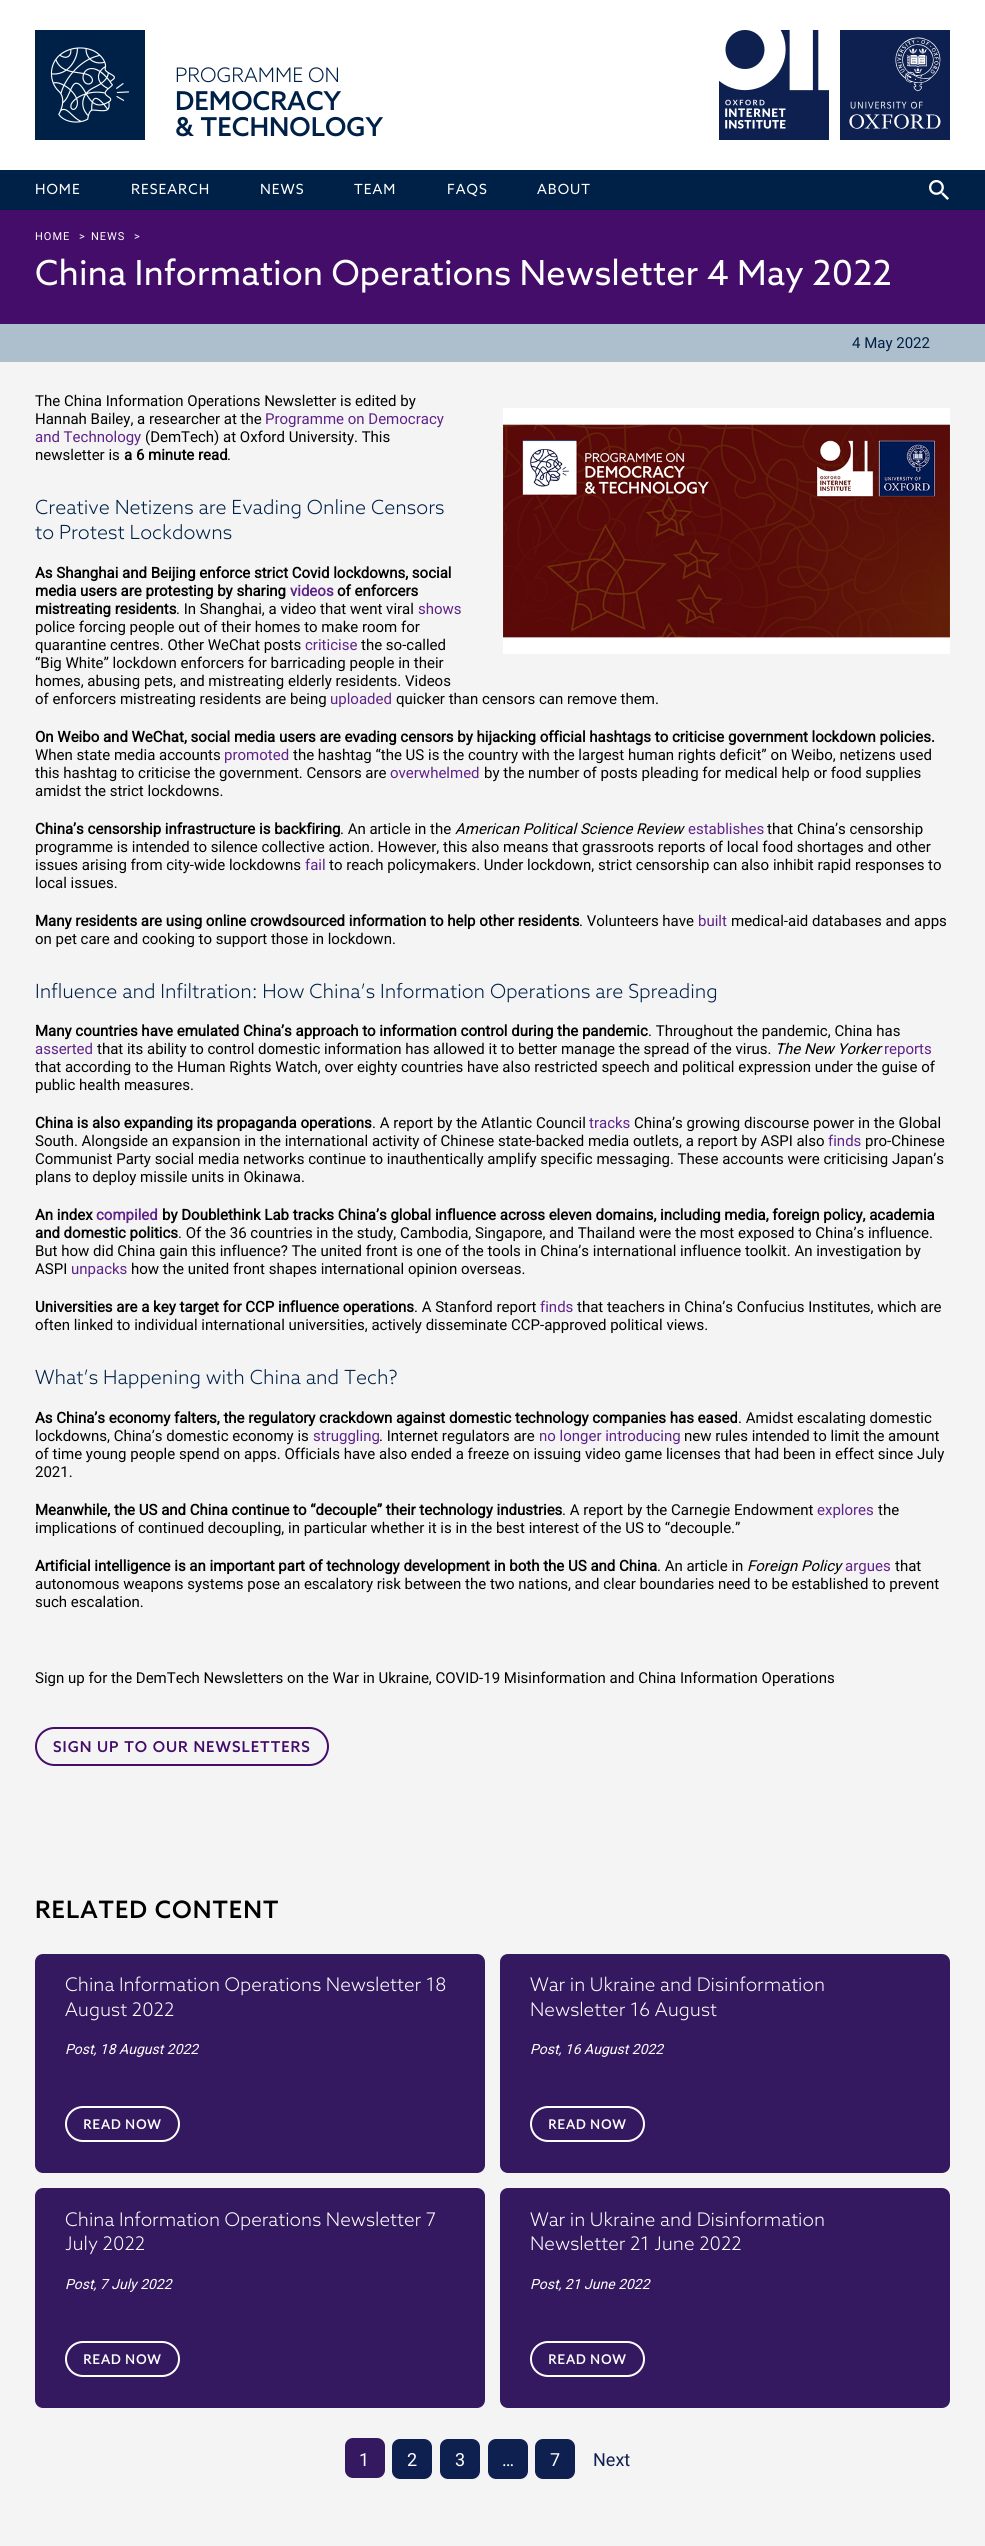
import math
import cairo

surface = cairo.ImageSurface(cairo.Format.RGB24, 985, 2546)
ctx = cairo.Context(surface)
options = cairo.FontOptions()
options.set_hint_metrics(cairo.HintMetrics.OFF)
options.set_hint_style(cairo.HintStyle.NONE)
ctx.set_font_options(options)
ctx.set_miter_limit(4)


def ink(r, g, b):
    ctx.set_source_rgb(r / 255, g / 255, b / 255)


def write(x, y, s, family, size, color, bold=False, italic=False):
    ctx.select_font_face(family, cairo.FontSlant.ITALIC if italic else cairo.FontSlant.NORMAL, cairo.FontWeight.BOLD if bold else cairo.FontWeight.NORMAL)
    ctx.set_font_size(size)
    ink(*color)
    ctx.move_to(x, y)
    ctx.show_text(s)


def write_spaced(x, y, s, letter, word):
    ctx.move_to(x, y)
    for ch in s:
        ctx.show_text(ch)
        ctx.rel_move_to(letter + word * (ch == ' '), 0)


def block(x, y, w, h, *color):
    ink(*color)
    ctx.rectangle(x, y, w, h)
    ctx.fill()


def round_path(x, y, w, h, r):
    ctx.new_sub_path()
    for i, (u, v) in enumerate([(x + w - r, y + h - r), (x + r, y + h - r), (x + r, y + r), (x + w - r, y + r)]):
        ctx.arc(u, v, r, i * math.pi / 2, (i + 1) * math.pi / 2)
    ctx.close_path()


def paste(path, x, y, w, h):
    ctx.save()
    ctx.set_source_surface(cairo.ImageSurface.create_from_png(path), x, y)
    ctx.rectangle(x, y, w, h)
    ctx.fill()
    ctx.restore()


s1 = dict(family="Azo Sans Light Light", size=20, color=(0, 33, 71))
s2 = dict(family="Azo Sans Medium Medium", size=26, color=(0, 33, 71))
s3 = dict(family="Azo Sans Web", size=34.5, color=(255, 255, 255))
s4 = dict(family="Roboto", size=15, color=(0, 33, 71))
s5 = dict(family="Roboto", size=15, color=(0, 0, 0))
s6 = dict(family="Roboto", size=15, color=(95, 34, 136))
s7 = dict(family="Roboto", size=15, color=(0, 0, 0), bold=True)
s8 = dict(family="Azo Sans Light Light", size=19.5, color=(0, 33, 71))
s9 = dict(family="Roboto", size=15, color=(95, 34, 136), bold=True)
s10 = dict(family="Roboto", size=15, color=(0, 0, 0), italic=True)
s11 = dict(family="Azo Sans Light Light", size=18.75, color=(255, 255, 255))
s12 = dict(family="Roboto", size=14, color=(255, 255, 255), italic=True)
s13 = dict(family="Roboto", size=18, color=(255, 255, 255))
s14 = dict(family="Roboto", size=18, color=(14, 32, 80))

ink(255, 255, 255)
ctx.paint()
paste("pic1.png", 35, 30, 110, 110)
write(175, 82, "PROGRAMME ON", **s1)
write(175, 110, "DEMOCRACY", **s2)
write_spaced(175, 136, "& TECHNOLOGY", 0, 1)
paste("pic2.png", 719, 30, 110, 110)
paste("pic3.png", 840, 30, 110, 110)
block(0, 170, 985, 40, 0, 33, 71)
ctx.select_font_face("Azo Sans Web")
ctx.set_font_size(14)
ink(255, 255, 255)
write_spaced(35, 194, "HOME", 1, 0)
write_spaced(131, 194, "RESEARCH", 1, 0)
write_spaced(260, 194, "NEWS", 1, 0)
write_spaced(354, 194, "TEAM", 1, 0)
write_spaced(447, 194, "FAQS", 1, 0)
write_spaced(537, 194, "ABOUT", 1, 0)
paste("pic4.png", 929, 180, 20, 20)
block(0, 362, 985, 2184, 244, 244, 244)
block(0, 210, 985, 114, 68, 13, 105)
ctx.select_font_face("Roboto")
ctx.set_font_size(11)
ink(255, 255, 255)
write_spaced(35, 240, "HOME", 1, 0)
write_spaced(79, 240, ">", 1, 0)
write_spaced(91, 240, "NEWS", 1, 0)
write_spaced(134, 240, ">", 1, 0)
write(35, 285, "China Information Operations Newsletter 4 May 2022", **s3)
block(0, 324, 985, 38, 173, 190, 204)
write(852, 348, "4 May 2022", **s4)
write(35, 406, "The China Information Operations Newsletter is edited by", **s5)
write(35, 424, "Hannah Bailey, a researcher at the", **s5)
write(265, 424, "Programme on Democracy", **s6)
write(35, 442, "and Technology", **s6)
write(145, 442, "(DemTech) at Oxford University. This", **s5)
write(35, 460, "newsletter is", **s5)
write(124, 460, "a 6 minute read", **s7)
write(227, 460, ".", **s5)
paste("pic5.png", 503, 408, 447, 246)
write(35, 514, "Creative Netizens are Evading Online Censors", **s8)
write(35, 539, "to Protest Lockdowns", **s8)
write(35, 578, "As Shanghai and Beijing enforce strict Covid lockdowns, social", **s7)
write(35, 596, "media users are protesting by sharing", **s7)
write(290, 596, "videos", **s9)
write(337, 596, "of enforcers", **s7)
write(35, 614, "mistreating residents", **s7)
write(176, 614, ". In Shanghai, a video that went viral", **s5)
write(418, 614, "shows", **s6)
write(35, 632, "police forcing people out of their homes to make room for", **s5)
write(35, 650, "quarantine centres. Other WeChat posts", **s5)
write(305, 650, "criticise", **s6)
write(361, 650, "the so-called", **s5)
write(35, 668, "“Big White” lockdown enforcers for barricading people in their", **s5)
write(35, 686, "homes, abusing pets, and mistreating elderly residents. Videos", **s5)
write(35, 704, "of enforcers mistreating residents are being", **s5)
write(330, 704, "uploaded", **s6)
write(396, 704, "quicker than censors can remove them.", **s5)
write(35, 742, "On Weibo and WeChat, social media users are evading censors by hijacking official hashtags to criticise government lockdown policies.", **s7)
write(35, 760, "When state media accounts", **s5)
write(224, 760, "promoted", **s6)
write(293, 760, "the hashtag “the US is the country with the largest human rights deficit” on Weibo, netizens used", **s5)
write(35, 778, "this hashtag to criticise the government. Censors are", **s5)
write(390, 778, "overwhelmed", **s6)
write(484, 778, "by the number of posts pleading for medical help or food supplies", **s5)
write(35, 796, "amidst the strict lockdowns.", **s5)
write(35, 834, "China’s censorship infrastructure is backfiring", **s7)
write(340, 834, ". An article in the", **s5)
write(455, 834, "American Political Science Review", **s10)
write(688, 834, "establishes", **s6)
write(767, 834, "that China’s censorship", **s5)
write(35, 852, "programme is intended to silence collective action. However, this also means that grassroots reports of local food shortages and other", **s5)
write(35, 870, "issues arising from city-wide lockdowns", **s5)
write(305, 870, "fail", **s6)
write(329, 870, "to reach policymakers. Under lockdown, strict censorship can also inhibit rapid responses to", **s5)
write(35, 888, "local issues.", **s5)
write(35, 926, "Many residents are using online crowdsourced information to help other residents", **s7)
write(579, 926, ". Volunteers have", **s5)
write(698, 926, "built", **s6)
write(731, 926, "medical-aid databases and apps", **s5)
write(35, 944, "on pet care and cooking to support those in lockdown.", **s5)
write(35, 998, "Influence and Infiltration: How China’s Information Operations are Spreading", **s8)
write(35, 1036, "Many countries have emulated China’s approach to information control during the pandemic", **s7)
write(648, 1036, ". Throughout the pandemic, China has", **s5)
write(35, 1054, "asserted", **s6)
write(97, 1054, "that its ability to control domestic information has allowed it to better manage the spread of the virus.", **s5)
write(775, 1054, "The New Yorker", **s10)
write(884, 1054, "reports", **s6)
write(35, 1072, "that according to the Human Rights Watch, over eighty countries have also restricted speech and political expression under the guise of", **s5)
write(35, 1090, "public health measures.", **s5)
write(35, 1128, "China is also expanding its propaganda operations", **s7)
write(372, 1128, ". A report by the Atlantic Council", **s5)
write(589, 1128, "tracks", **s6)
write(634, 1128, "China’s growing discourse power in the Global", **s5)
write(35, 1146, "South. Alongside an expansion in the international activity of Chinese state-backed media outlets, a report by ASPI also", **s5)
write(828, 1146, "finds", **s6)
write(865, 1146, "pro-Chinese", **s5)
write(35, 1164, "Communist Party social media networks continue to inauthentically amplify specific messaging. These accounts were criticising Japan’s", **s5)
write(35, 1182, "plans to deploy missile units in Okinawa.", **s5)
write(35, 1220, "An index", **s7)
write(96, 1220, "compiled", **s9)
write(162, 1220, "by Doublethink Lab tracks China’s global influence across eleven domains, including media, foreign policy, academia", **s7)
write(35, 1238, "and domestic politics", **s7)
write(178, 1238, ". Of the 36 countries in the study, Cambodia, Singapore, and Thailand were the most exposed to China’s influence.", **s5)
write(35, 1256, "But how did China gain this influence? The united front is one of the tools in China’s international influence toolkit. An investigation by", **s5)
write(35, 1274, "ASPI", **s5)
write(71, 1274, "unpacks", **s6)
write(131, 1274, "how the united front shapes international opinion overseas.", **s5)
write(35, 1312, "Universities are a key target for CCP influence operations", **s7)
write(414, 1312, ". A Stanford report", **s5)
write(540, 1312, "finds", **s6)
write(577, 1312, "that teachers in China’s Confucius Institutes, which are", **s5)
write(35, 1330, "often linked to individual international universities, actively disseminate CCP-approved political views.", **s5)
write(35, 1384, "What’s Happening with China and Tech?", **s8)
write(35, 1423, "As China’s economy falters, the regulatory crackdown against domestic technology companies has eased", **s7)
write(738, 1423, ". Amidst escalating domestic", **s5)
write(35, 1441, "lockdowns, China’s domestic economy is", **s5)
write(313, 1441, "struggling", **s6)
write(379, 1441, ". Internet regulators are", **s5)
write(539, 1441, "no longer introducing", **s6)
write(684, 1441, "new rules intended to limit the amount", **s5)
write(35, 1459, "of time young people spend on apps. Officials have also ended a freeze on issuing video game licenses that had been in effect since July", **s5)
write(35, 1477, "2021.", **s5)
write(35, 1515, "Meanwhile, the US and China continue to “decouple” their technology industries", **s7)
write(562, 1515, ". A report by the Carnegie Endowment", **s5)
write(817, 1515, "explores", **s6)
write(878, 1515, "the", **s5)
write(35, 1533, "implications of continued decoupling, in particular whether it is in the best interest of the US to “decouple.”", **s5)
write(35, 1571, "Artificial intelligence is an important part of technology development in both the US and China", **s7)
write(657, 1571, ". An article in", **s5)
write(747, 1571, "Foreign Policy", **s10)
write(845, 1571, "argues", **s6)
write(895, 1571, "that", **s5)
write(35, 1589, "autonomous weapons systems pose an escalatory risk between the two nations, and clear boundaries need to be established to prevent", **s5)
write(35, 1607, "such escalation.", **s5)
write(35, 1683, "Sign up for the DemTech Newsletters on the War in Ukraine, COVID-19 Misinformation and China Information Operations", **s5)
round_path(36, 1728, 292, 37, 18.5)
ink(68, 13, 105)
ctx.stroke()
ctx.select_font_face("Azo Sans Medium Medium")
write_spaced(53, 1752, "SIGN UP TO OUR NEWSLETTERS", 1, 0)
ctx.set_font_size(24)
ink(0, 0, 0)
write_spaced(35, 1918, "RELATED CONTENT", 1, 0)
ink(52, 25, 96)
round_path(35, 1954, 450, 219, 8)
ctx.fill()
write(65, 1991, "China Information Operations Newsletter 18", **s11)
write(65, 2016, "August 2022", **s11)
write(65, 2054, "Post, 18 August 2022", **s12)
round_path(66, 2107, 113, 34, 17)
ctx.stroke()
ctx.select_font_face("Lato", cairo.FontSlant.NORMAL, cairo.FontWeight.BOLD)
ctx.set_font_size(13)
write_spaced(83, 2129, "READ NOW", 1, 0)
ink(52, 25, 96)
round_path(500, 1954, 450, 219, 8)
ctx.fill()
write(530, 1991, "War in Ukraine and Disinformation", **s11)
write(530, 2016, "Newsletter 16 August", **s11)
write(530, 2054, "Post, 16 August 2022", **s12)
round_path(531, 2107, 113, 34, 17)
ctx.stroke()
ctx.select_font_face("Lato", cairo.FontSlant.NORMAL, cairo.FontWeight.BOLD)
ctx.set_font_size(13)
write_spaced(548, 2129, "READ NOW", 1, 0)
ink(52, 25, 96)
round_path(35, 2188, 450, 220, 8)
ctx.fill()
write(65, 2226, "China Information Operations Newsletter 7", **s11)
write(65, 2250, "July 2022", **s11)
write(65, 2289, "Post, 7 July 2022", **s12)
round_path(66, 2342, 113, 34, 17)
ctx.stroke()
ctx.select_font_face("Lato", cairo.FontSlant.NORMAL, cairo.FontWeight.BOLD)
ctx.set_font_size(13)
write_spaced(83, 2364, "READ NOW", 1, 0)
ink(52, 25, 96)
round_path(500, 2188, 450, 220, 8)
ctx.fill()
write(530, 2226, "War in Ukraine and Disinformation", **s11)
write(530, 2250, "Newsletter 21 June 2022", **s11)
write(530, 2289, "Post, 21 June 2022", **s12)
round_path(531, 2342, 113, 34, 17)
ctx.stroke()
ctx.select_font_face("Lato", cairo.FontSlant.NORMAL, cairo.FontWeight.BOLD)
ctx.set_font_size(13)
write_spaced(548, 2364, "READ NOW", 1, 0)
ink(52, 25, 96)
round_path(345, 2438, 40, 40, 8)
ctx.fill()
write(359, 2466, "1", **s13)
ink(14, 32, 80)
round_path(392, 2439, 40, 40, 8)
ctx.fill()
write(407, 2466, "2", **s13)
ink(14, 32, 80)
round_path(440, 2439, 40, 40, 8)
ctx.fill()
write(455, 2466, "3", **s13)
ink(14, 32, 80)
round_path(488, 2439, 40, 40, 8)
ctx.fill()
write(502, 2466, "…", **s13)
ink(14, 32, 80)
round_path(535, 2439, 40, 40, 8)
ctx.fill()
write(550, 2466, "7", **s13)
write(593, 2466, "Next", **s14)
surface.write_to_png("screenshot.png")
